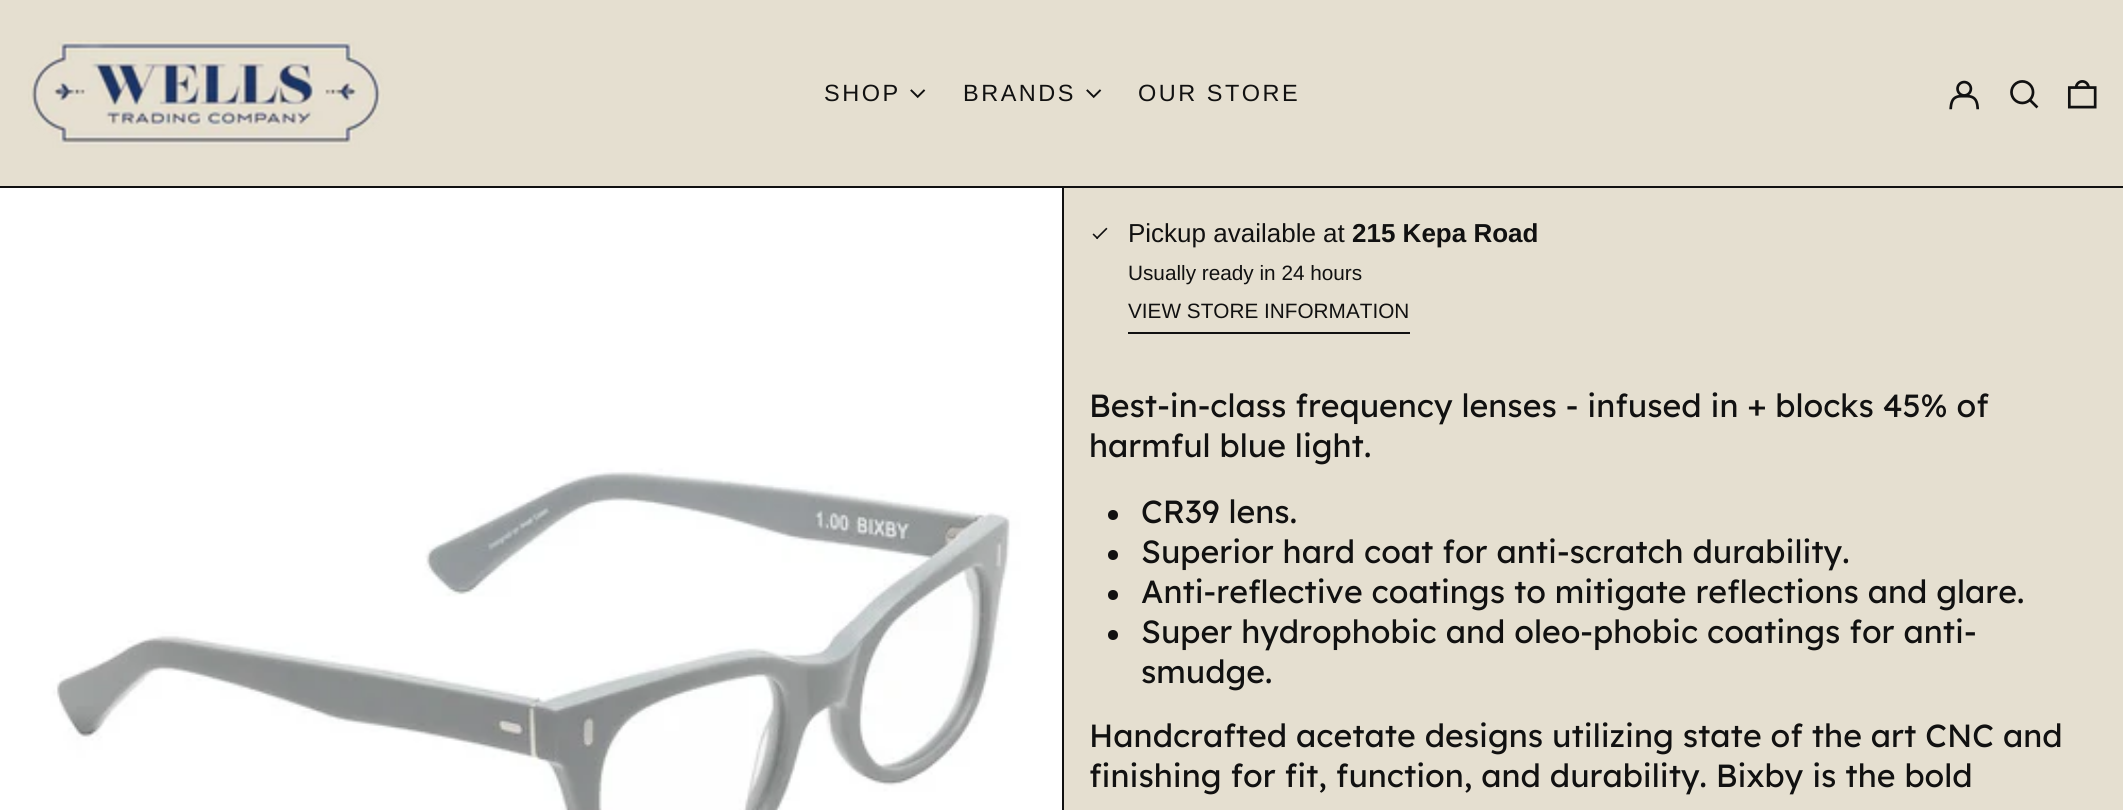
import math
import cairo

surface = cairo.ImageSurface(cairo.Format.RGB24, 2123, 810)
ctx = cairo.Context(surface)
options = cairo.FontOptions()
options.set_hint_metrics(cairo.HintMetrics.OFF)
options.set_hint_style(cairo.HintStyle.NONE)
ctx.set_font_options(options)
ctx.set_miter_limit(4)


def ink(r, g, b):
    ctx.set_source_rgb(r / 255, g / 255, b / 255)


def write(x, y, s, family, size, color, bold=False, italic=False):
    ctx.select_font_face(family, cairo.FontSlant.ITALIC if italic else cairo.FontSlant.NORMAL, cairo.FontWeight.BOLD if bold else cairo.FontWeight.NORMAL)
    ctx.set_font_size(size)
    ink(*color)
    ctx.move_to(x, y)
    ctx.show_text(s)


def write_spaced(x, y, s, letter, word):
    ctx.move_to(x, y)
    for ch in s:
        ctx.show_text(ch)
        ctx.rel_move_to(letter + word * (ch == ' '), 0)


def block(x, y, w, h, *color):
    ink(*color)
    ctx.rectangle(x, y, w, h)
    ctx.fill()


def paste(path, x, y, w, h):
    ctx.save()
    ctx.set_source_surface(cairo.ImageSurface.create_from_png(path), x, y)
    ctx.rectangle(x, y, w, h)
    ctx.fill()
    ctx.restore()


s1 = dict(family="Liberation Sans", size=26, color=(17, 17, 17))
s2 = dict(family="Liberation Sans", size=26, color=(17, 17, 17), bold=True)
s3 = dict(family="Liberation Sans", size=20.75, color=(17, 17, 17))
s4 = dict(family="Lexend Deca", size=32, color=(17, 17, 17))

ink(17, 17, 17)
ctx.paint()
block(0, 0, 2123, 186, 229, 223, 208)
paste("pic1.png", 28, 40, 356, 108)
ctx.select_font_face("Liberation Sans")
ctx.set_font_size(23.5)
ink(17, 17, 17)
write_spaced(824, 101, "SHOP", 2.5, 0)
paste("pic2.png", 910, 89, 16, 10)
write_spaced(963, 101, "BRANDS", 2.5, 0)
paste("pic2.png", 1086, 89, 16, 10)
write_spaced(1138, 101, "OUR STORE", 2.5, 0)
paste("pic3.png", 1949, 80, 31, 30)
paste("pic4.png", 2010, 80, 29, 29)
paste("pic5.png", 2067, 80, 30, 29)
paste("pic6.png", 0, 188, 1062, 622)
block(1064, 188, 1059, 622, 229, 223, 208)
paste("pic7.png", 1092, 227, 16, 13)
write(1128, 242, "Pickup available at", **s1)
write(1352, 242, "215 Kepa Road", **s2)
write(1128, 280, "Usually ready in 24 hours", **s3)
block(1128, 332, 282, 2, 17, 17, 17)
write(1128, 318, "VIEW STORE INFORMATION", **s3)
write(1089, 417, "Best-in-class frequency lenses - infused in + blocks 45% of", **s4)
write(1089, 457, "harmful blue light.", **s4)
ctx.new_path()
ctx.arc(1113, 515, 5, 0, 2 * math.pi)
ctx.fill()
write(1141, 523, "CR39 lens.", **s4)
ctx.new_path()
ctx.arc(1113, 555, 5, 0, 2 * math.pi)
ctx.fill()
write(1141, 563, "Superior hard coat for anti-scratch durability.", **s4)
ctx.new_path()
ctx.arc(1113, 595, 5, 0, 2 * math.pi)
ctx.fill()
write(1141, 603, "Anti-reflective coatings to mitigate reflections and glare.", **s4)
ctx.new_path()
ctx.arc(1113, 635, 5, 0, 2 * math.pi)
ctx.fill()
write(1141, 643, "Super hydrophobic and oleo-phobic coatings for anti-", **s4)
write(1141, 683, "smudge.", **s4)
write(1089, 747, "Handcrafted acetate designs utilizing state of the art CNC and", **s4)
write(1089, 787, "finishing for fit, function, and durability. Bixby is the bold", **s4)
surface.write_to_png("screenshot.png")
